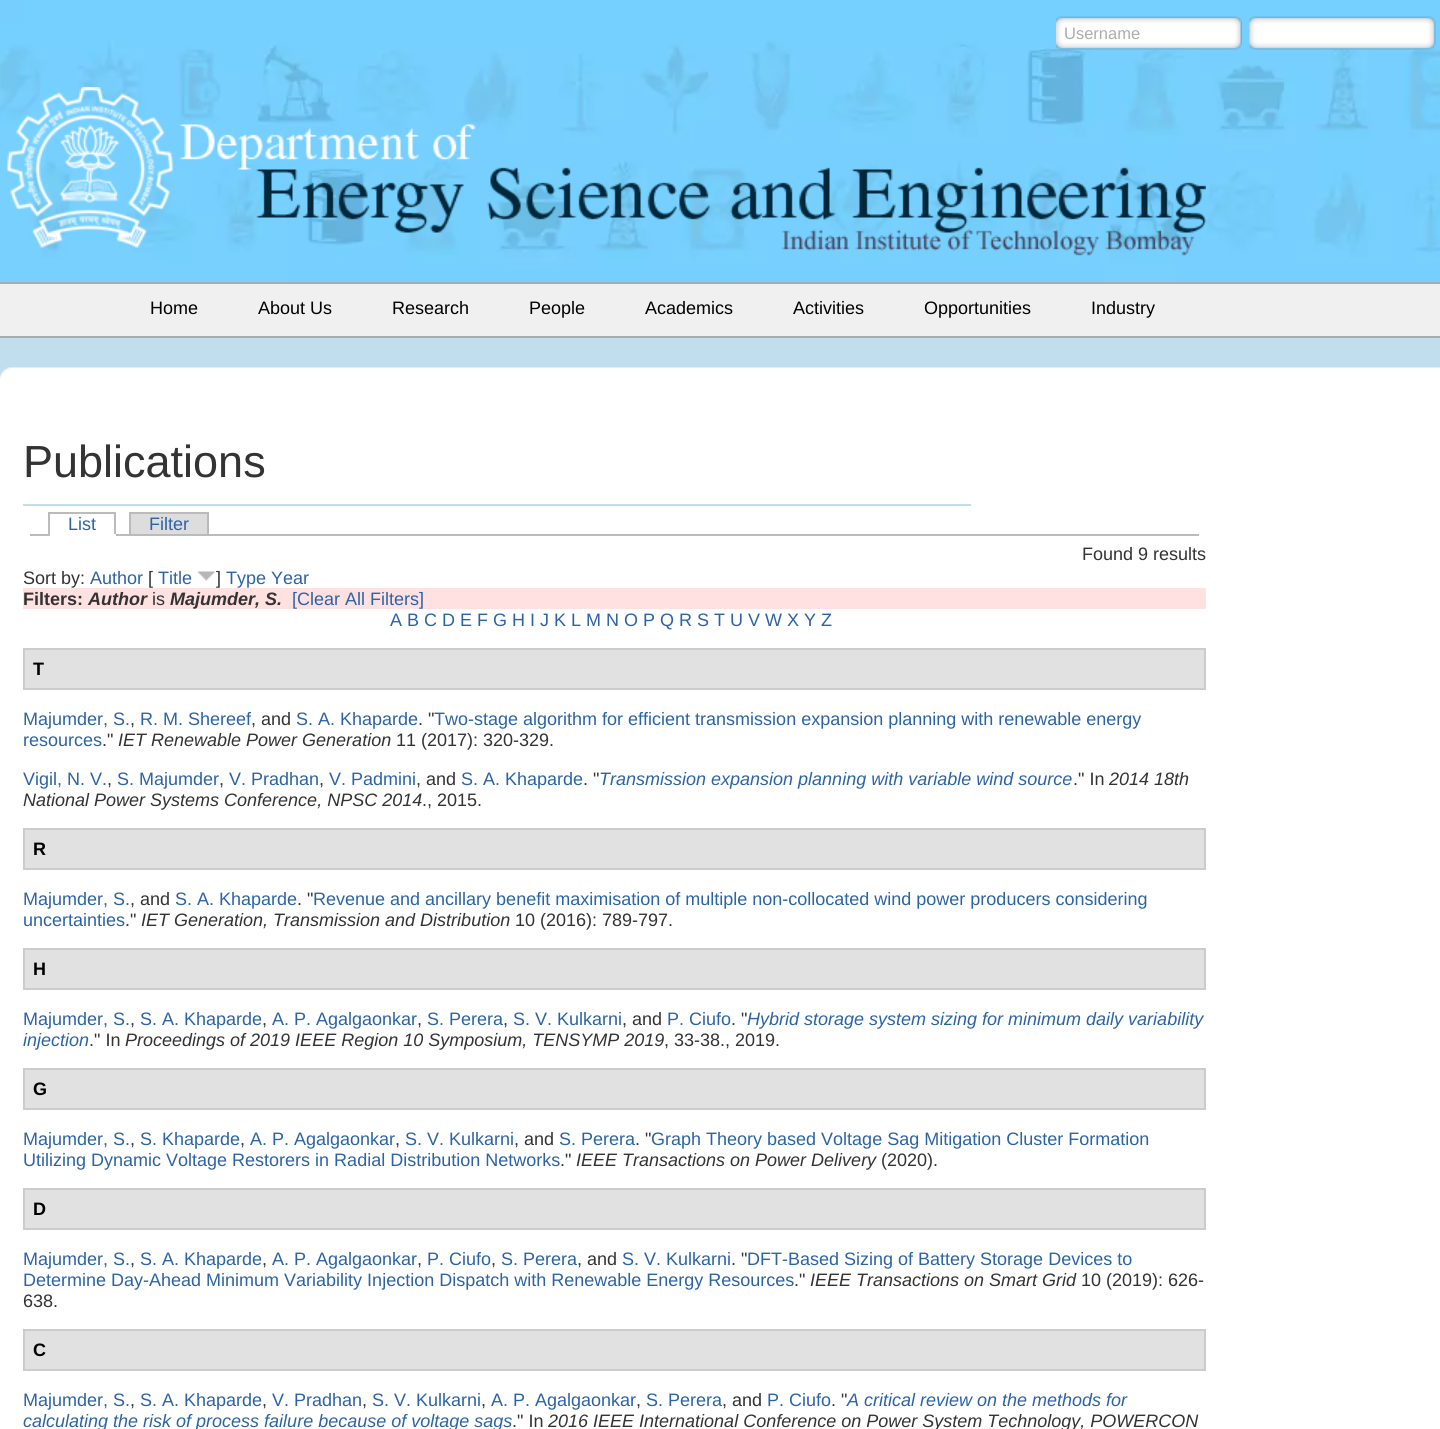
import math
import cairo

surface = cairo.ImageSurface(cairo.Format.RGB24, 1440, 1429)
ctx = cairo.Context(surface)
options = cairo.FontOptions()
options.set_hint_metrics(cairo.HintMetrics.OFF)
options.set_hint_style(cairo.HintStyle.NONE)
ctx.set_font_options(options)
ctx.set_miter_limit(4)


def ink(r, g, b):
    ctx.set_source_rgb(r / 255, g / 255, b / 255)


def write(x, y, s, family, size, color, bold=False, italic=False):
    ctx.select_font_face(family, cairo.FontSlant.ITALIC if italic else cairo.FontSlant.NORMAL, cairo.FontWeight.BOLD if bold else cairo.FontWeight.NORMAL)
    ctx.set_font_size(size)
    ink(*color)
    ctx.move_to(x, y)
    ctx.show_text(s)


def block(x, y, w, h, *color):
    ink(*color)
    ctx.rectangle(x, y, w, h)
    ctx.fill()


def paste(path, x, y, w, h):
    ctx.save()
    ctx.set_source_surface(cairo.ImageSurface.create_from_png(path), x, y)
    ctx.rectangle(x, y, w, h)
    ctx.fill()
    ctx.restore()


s1 = dict(family="Liberation Sans", size=16.5, color=(173, 173, 173))
s2 = dict(family="Liberation Sans", size=18, color=(0, 0, 0))
s3 = dict(family="Liberation Sans", size=45, color=(51, 51, 51))
s4 = dict(family="Liberation Sans", size=18, color=(44, 99, 167))
s5 = dict(family="Liberation Sans", size=18, color=(51, 51, 51))
s6 = dict(family="Liberation Sans", size=18, color=(51, 51, 51), bold=True)
s7 = dict(family="Liberation Sans", size=18, color=(51, 51, 51), bold=True, italic=True)
s8 = dict(family="Liberation Sans", size=18, color=(0, 0, 0), bold=True)
s9 = dict(family="Liberation Sans", size=18, color=(51, 51, 51), italic=True)
s10 = dict(family="Liberation Sans", size=18, color=(44, 99, 167), italic=True)

ink(255, 255, 255)
ctx.paint()
paste("pic1.png", 0, 0, 1440, 282)
paste("pic2.png", 1056, 16, 186, 34)
write(1064, 39, "Username", **s1)
paste("pic3.png", 1249, 16, 187, 34)
paste("pic4.png", 7, 87, 166, 161)
paste("pic5.png", 180, 124, 1026, 132)
block(0, 284, 1440, 52, 240, 240, 240)
block(0, 282, 1440, 2, 171, 171, 171)
block(0, 336, 1440, 2, 171, 171, 171)
write(150, 314, "Home", **s2)
write(258, 314, "About Us", **s2)
write(392, 314, "Research", **s2)
write(529, 314, "People", **s2)
write(645, 314, "Academics", **s2)
write(793, 314, "Activities", **s2)
write(924, 314, "Opportunities", **s2)
write(1091, 314, "Industry", **s2)
block(0, 338, 1440, 30, 192, 222, 237)
paste("pic6.png", 0, 367, 1440, 17)
block(23, 504, 948, 2, 192, 222, 237)
write(23, 477, "Publications", **s3)
block(30, 534, 1169, 2, 187, 187, 187)
write(68, 530, "List", **s4)
block(48, 512, 68, 2, 187, 187, 187)
block(114, 512, 2, 24, 187, 187, 187)
block(48, 534, 68, 2, 255, 255, 255)
block(48, 512, 2, 24, 187, 187, 187)
block(131, 514, 76, 20, 221, 221, 221)
write(149, 530, "Filter", **s4)
block(129, 512, 80, 2, 187, 187, 187)
block(207, 512, 2, 22, 187, 187, 187)
block(129, 512, 2, 22, 187, 187, 187)
write(1082, 560, "Found 9 results", **s5)
write(23, 584, "Sort by:", **s5)
write(90, 584, "Author", **s4)
write(148, 584, "[", **s5)
write(158, 584, "Title", **s4)
paste("pic7.png", 197, 571, 18, 10)
write(216, 584, "]", **s5)
write(226, 584, "Type Year", **s4)
block(23, 588, 1183, 21, 255, 225, 225)
write(23, 605, "Filters:", **s6)
write(88, 605, "Author", **s7)
write(152, 605, "is", **s5)
write(170, 605, "Majumder, S.", **s7)
write(292, 605, "[Clear All Filters]", **s4)
write(390, 626, "A B C D E F G H I J K L M N O P Q R S T U V W X Y Z", **s4)
ink(225, 225, 225)
ctx.rectangle(24, 649, 1181, 40)
ctx.fill_preserve()
ink(204, 204, 204)
ctx.stroke()
write(33, 675, "T", **s8)
write(23, 725, "Majumder, S.", **s4)
write(140, 725, "R. M. Shereef", **s4)
write(251, 725, ", and", **s5)
write(296, 725, "S. A. Khaparde", **s4)
write(418, 725, ". \"", **s5)
write(434, 725, "Two-stage algorithm for efficient transmission expansion planning with renewable energy", **s4)
write(130, 725, ",", **s5)
write(23, 746, "resources", **s4)
write(102, 746, ".\"", **s5)
write(118, 746, "IET Renewable Power Generation", **s9)
write(396, 746, "11 (2017): 320-329.", **s5)
write(23, 785, "Vigil, N. V.", **s4)
write(117, 785, "S. Majumder", **s4)
write(229, 785, "V. Pradhan", **s4)
write(329, 785, "V. Padmini", **s4)
write(416, 785, ", and", **s5)
write(461, 785, "S. A. Khaparde", **s4)
write(583, 785, ". \"", **s5)
write(599, 785, "Transmission expansion planning with variable wind source", **s10)
write(1073, 785, ".\" In", **s5)
write(1109, 785, "2014 18th", **s9)
write(107, 785, ",", **s5)
write(219, 785, ",", **s5)
write(319, 785, ",", **s5)
write(23, 806, "National Power Systems Conference, NPSC 2014", **s9)
write(422, 806, "., 2015.", **s5)
ink(225, 225, 225)
ctx.rectangle(24, 829, 1181, 40)
ctx.fill_preserve()
ink(204, 204, 204)
ctx.stroke()
write(33, 855, "R", **s8)
write(23, 905, "Majumder, S.", **s4)
write(130, 905, ", and", **s5)
write(175, 905, "S. A. Khaparde", **s4)
write(297, 905, ". \"", **s5)
write(313, 905, "Revenue and ancillary benefit maximisation of multiple non-collocated wind power producers considering", **s4)
write(23, 926, "uncertainties", **s4)
write(125, 926, ".\"", **s5)
write(141, 926, "IET Generation, Transmission and Distribution", **s9)
write(515, 926, "10 (2016): 789-797.", **s5)
ink(225, 225, 225)
ctx.rectangle(24, 949, 1181, 40)
ctx.fill_preserve()
ink(204, 204, 204)
ctx.stroke()
write(33, 975, "H", **s8)
write(23, 1025, "Majumder, S.", **s4)
write(140, 1025, "S. A. Khaparde", **s4)
write(272, 1025, "A. P. Agalgaonkar", **s4)
write(427, 1025, "S. Perera", **s4)
write(513, 1025, "S. V. Kulkarni", **s4)
write(622, 1025, ", and", **s5)
write(667, 1025, "P. Ciufo", **s4)
write(731, 1025, ". \"", **s5)
write(747, 1025, "Hybrid storage system sizing for minimum daily variability", **s10)
write(130, 1025, ",", **s5)
write(262, 1025, ",", **s5)
write(417, 1025, ",", **s5)
write(503, 1025, ",", **s5)
write(23, 1046, "injection", **s10)
write(89, 1046, ".\" In", **s5)
write(125, 1046, "Proceedings of 2019 IEEE Region 10 Symposium, TENSYMP 2019", **s9)
write(664, 1046, ", 33-38., 2019.", **s5)
ink(225, 225, 225)
ctx.rectangle(24, 1069, 1181, 40)
ctx.fill_preserve()
ink(204, 204, 204)
ctx.stroke()
write(33, 1095, "G", **s8)
write(23, 1145, "Majumder, S.", **s4)
write(140, 1145, "S. Khaparde", **s4)
write(250, 1145, "A. P. Agalgaonkar", **s4)
write(405, 1145, "S. V. Kulkarni", **s4)
write(514, 1145, ", and", **s5)
write(559, 1145, "S. Perera", **s4)
write(635, 1145, ". \"", **s5)
write(651, 1145, "Graph Theory based Voltage Sag Mitigation Cluster Formation", **s4)
write(130, 1145, ",", **s5)
write(240, 1145, ",", **s5)
write(395, 1145, ",", **s5)
write(23, 1166, "Utilizing Dynamic Voltage Restorers in Radial Distribution Networks", **s4)
write(560, 1166, ".\"", **s5)
write(576, 1166, "IEEE Transactions on Power Delivery", **s9)
write(881, 1166, "(2020).", **s5)
ink(225, 225, 225)
ctx.rectangle(24, 1189, 1181, 40)
ctx.fill_preserve()
ink(204, 204, 204)
ctx.stroke()
write(33, 1215, "D", **s8)
write(23, 1265, "Majumder, S.", **s4)
write(140, 1265, "S. A. Khaparde", **s4)
write(272, 1265, "A. P. Agalgaonkar", **s4)
write(427, 1265, "P. Ciufo", **s4)
write(501, 1265, "S. Perera", **s4)
write(577, 1265, ", and", **s5)
write(622, 1265, "S. V. Kulkarni", **s4)
write(731, 1265, ". \"", **s5)
write(747, 1265, "DFT-Based Sizing of Battery Storage Devices to", **s4)
write(130, 1265, ",", **s5)
write(262, 1265, ",", **s5)
write(417, 1265, ",", **s5)
write(491, 1265, ",", **s5)
write(23, 1286, "Determine Day-Ahead Minimum Variability Injection Dispatch with Renewable Energy Resources", **s4)
write(794, 1286, ".\"", **s5)
write(810, 1286, "IEEE Transactions on Smart Grid", **s9)
write(1081, 1286, "10 (2019): 626-", **s5)
write(23, 1307, "638.", **s5)
ink(225, 225, 225)
ctx.rectangle(24, 1330, 1181, 40)
ctx.fill_preserve()
ink(204, 204, 204)
ctx.stroke()
write(33, 1356, "C", **s8)
write(23, 1406, "Majumder, S.", **s4)
write(140, 1406, "S. A. Khaparde", **s4)
write(272, 1406, "V. Pradhan", **s4)
write(372, 1406, "S. V. Kulkarni", **s4)
write(491, 1406, "A. P. Agalgaonkar", **s4)
write(646, 1406, "S. Perera", **s4)
write(722, 1406, ", and", **s5)
write(767, 1406, "P. Ciufo", **s4)
write(831, 1406, ". \"", **s5)
write(847, 1406, "A critical review on the methods for", **s10)
write(130, 1406, ",", **s5)
write(262, 1406, ",", **s5)
write(362, 1406, ",", **s5)
write(481, 1406, ",", **s5)
write(636, 1406, ",", **s5)
write(23, 1427, "calculating the risk of process failure because of voltage sags", **s10)
write(512, 1427, ".\" In", **s5)
write(548, 1427, "2016 IEEE International Conference on Power System Technology, POWERCON", **s9)
surface.write_to_png("screenshot.png")
